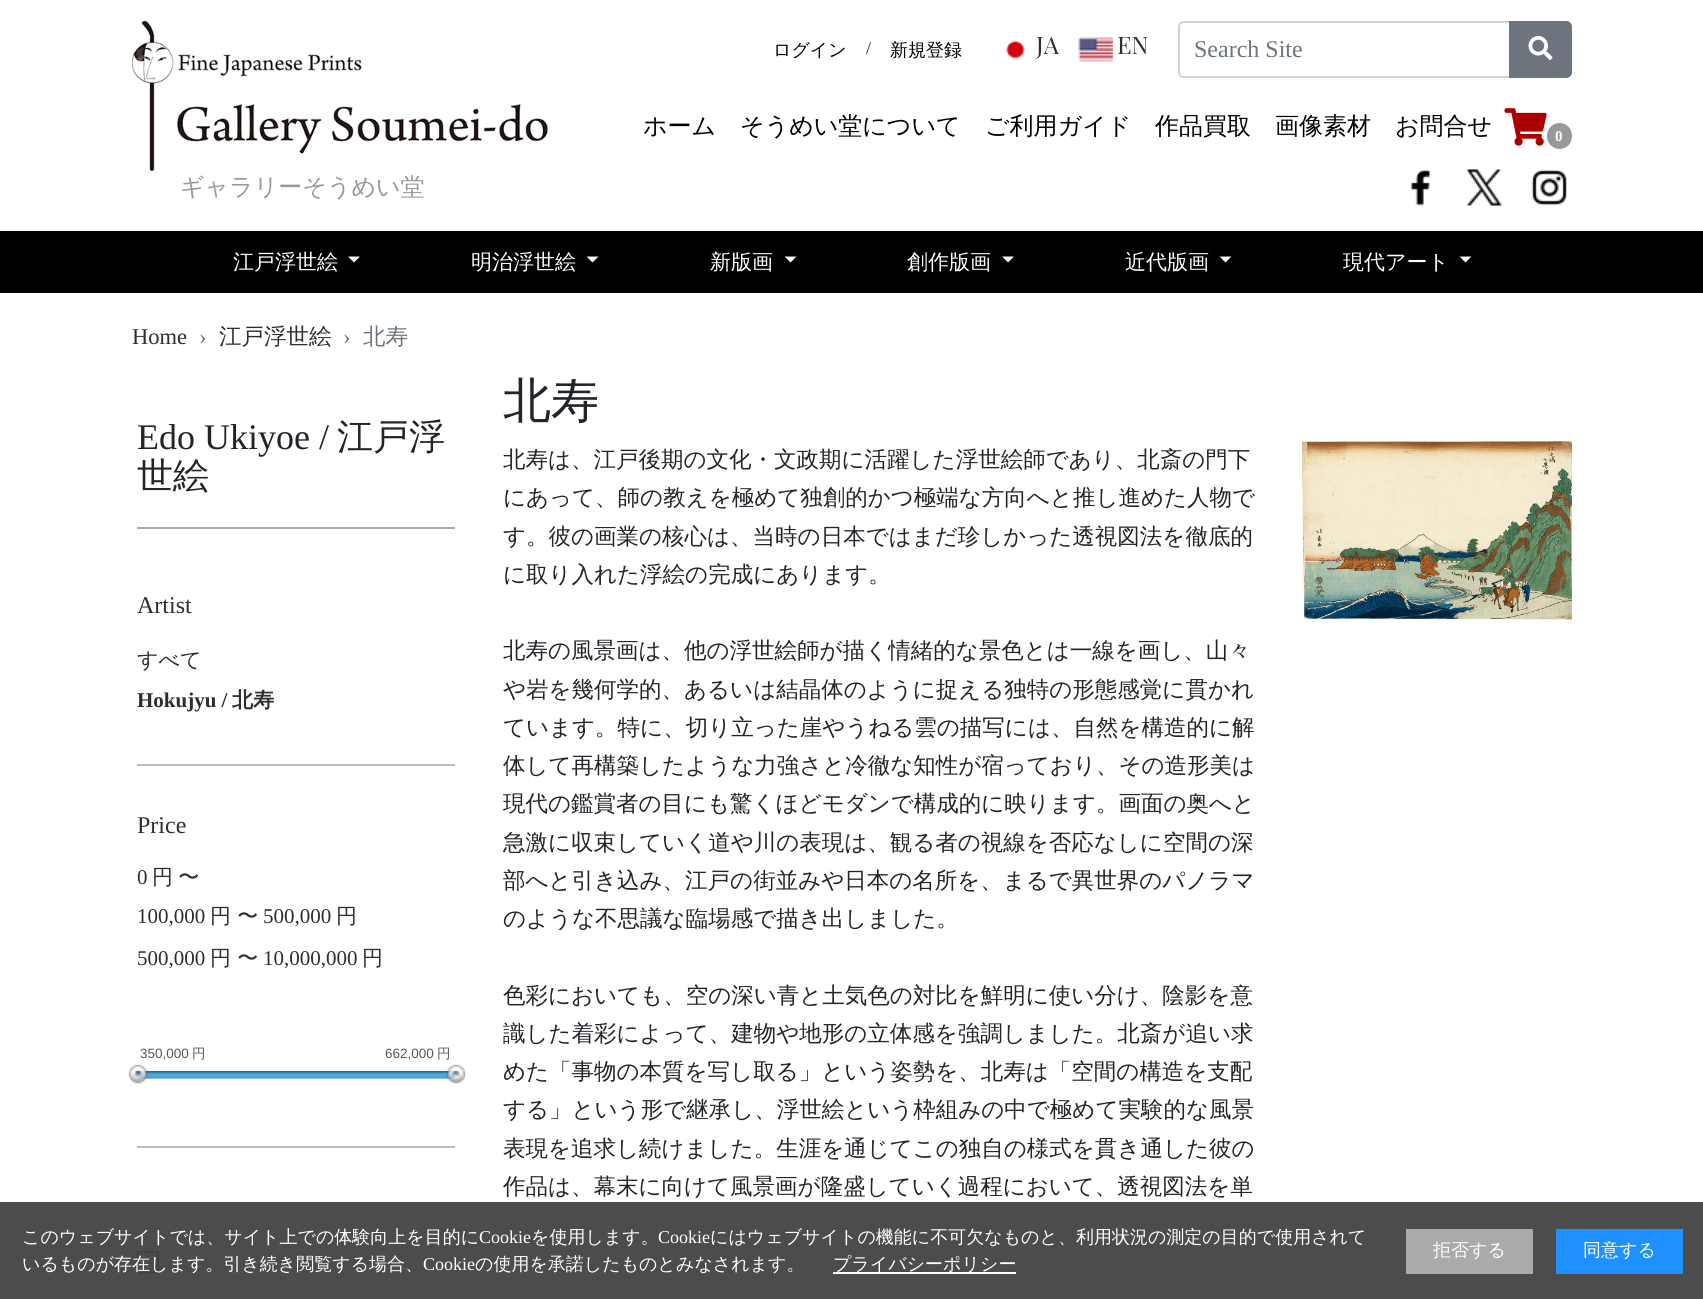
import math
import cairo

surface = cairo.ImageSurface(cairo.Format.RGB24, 1703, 1299)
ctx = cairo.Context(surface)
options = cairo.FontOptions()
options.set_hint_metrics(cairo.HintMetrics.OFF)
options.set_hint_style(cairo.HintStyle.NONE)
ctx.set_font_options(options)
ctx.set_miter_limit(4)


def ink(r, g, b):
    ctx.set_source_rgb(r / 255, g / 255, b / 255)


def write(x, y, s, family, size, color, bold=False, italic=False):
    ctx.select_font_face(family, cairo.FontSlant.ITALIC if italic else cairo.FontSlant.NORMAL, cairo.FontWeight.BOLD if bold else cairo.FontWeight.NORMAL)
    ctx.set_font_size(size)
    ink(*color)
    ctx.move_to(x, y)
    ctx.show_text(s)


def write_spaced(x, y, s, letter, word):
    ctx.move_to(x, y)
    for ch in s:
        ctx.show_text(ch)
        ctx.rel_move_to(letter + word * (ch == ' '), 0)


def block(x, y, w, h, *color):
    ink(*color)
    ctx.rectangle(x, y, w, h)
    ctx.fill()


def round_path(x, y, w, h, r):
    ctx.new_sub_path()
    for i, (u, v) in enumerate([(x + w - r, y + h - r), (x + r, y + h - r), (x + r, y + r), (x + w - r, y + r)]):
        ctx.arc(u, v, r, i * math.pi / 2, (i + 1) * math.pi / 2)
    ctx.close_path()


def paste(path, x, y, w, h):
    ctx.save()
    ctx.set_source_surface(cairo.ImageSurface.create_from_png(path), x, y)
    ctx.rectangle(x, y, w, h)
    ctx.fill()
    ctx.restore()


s1 = dict(family="WenQuanYi Zen Hei Medium", size=18, color=(0, 0, 0))
s2 = dict(family="Liberation Serif", size=18, color=(33, 37, 41))
s3 = dict(family="Playfair Display", size=24, color=(41, 47, 47))
s4 = dict(family="Liberation Serif", size=24, color=(108, 117, 125))
s5 = dict(family="WenQuanYi Zen Hei Medium", size=24, color=(0, 0, 0))
s6 = dict(family="Liberation Serif", size=15, color=(255, 255, 255), bold=True)
s7 = dict(family="WenQuanYi Zen Hei Medium", size=24, color=(153, 153, 153))
s8 = dict(family="WenQuanYi Zen Hei Medium", size=21, color=(255, 255, 255))
s9 = dict(family="Liberation Serif", size=22.5, color=(47, 46, 46))
s10 = dict(family="Liberation Serif", size=22.5, color=(108, 117, 125))
s11 = dict(family="WenQuanYi Zen Hei Medium", size=22.5, color=(47, 46, 46))
s12 = dict(family="WenQuanYi Zen Hei Medium", size=22.5, color=(108, 117, 125))
s13 = dict(family="Liberation Serif", size=36, color=(33, 37, 41))
s14 = dict(family="WenQuanYi Zen Hei Medium", size=36, color=(33, 37, 41))
s15 = dict(family="Liberation Serif", size=24, color=(47, 46, 46))
s16 = dict(family="WenQuanYi Zen Hei Medium", size=21, color=(47, 46, 46))
s17 = dict(family="Liberation Serif", size=21, color=(47, 46, 46), bold=True)
s18 = dict(family="WenQuanYi Zen Hei", size=21, color=(47, 46, 46), bold=True)
s19 = dict(family="Liberation Serif", size=21, color=(47, 46, 46))
s20 = dict(family="Liberation Sans", size=13.5, color=(89, 88, 88))
s21 = dict(family="WenQuanYi Zen Hei Medium", size=13.5, color=(89, 88, 88))
s22 = dict(family="WenQuanYi Zen Hei Medium", size=48, color=(33, 37, 41))
s23 = dict(family="WenQuanYi Zen Hei Medium", size=22.5, color=(33, 37, 41))
s24 = dict(family="WenQuanYi Zen Hei Medium", size=18, color=(255, 255, 255))
s25 = dict(family="Liberation Serif", size=18, color=(255, 255, 255))

ink(255, 255, 255)
ctx.paint()
write(773, 56, "ログイン", **s1)
write(866, 54, "/", **s2)
write(890, 56, "新規登録", **s1)
paste("pic1.png", 1006, 40, 19, 19)
write(1036, 54, "JA", **s3)
paste("pic2.png", 1078, 37, 35, 25)
write(1117, 54, "EN", **s3)
ctx.new_path()
ctx.move_to(1184, 22)
ctx.line_to(1510, 22)
ctx.line_to(1510, 77)
ctx.line_to(1184, 77)
ctx.curve_to(1181, 77, 1179, 75, 1179, 72)
ctx.line_to(1179, 27)
ctx.curve_to(1179, 24, 1181, 22, 1184, 22)
ctx.close_path()
ink(206, 212, 218)
ctx.stroke()
write(1194, 57, "Search Site", **s4)
ctx.new_path()
ctx.move_to(1510, 22)
ctx.line_to(1566, 22)
ctx.curve_to(1569, 22, 1571, 24, 1571, 27)
ctx.line_to(1571, 72)
ctx.curve_to(1571, 75, 1569, 77, 1566, 77)
ctx.line_to(1510, 77)
ctx.close_path()
ctx.fill_preserve()
ctx.stroke()
paste("pic3.png", 1528, 36, 25, 24)
write(643, 134, "ホーム", **s5)
write(740, 134, "そうめい堂について", **s5)
write(985, 134, "ご利用ガイド", **s5)
write(1155, 134, "作品買取", **s5)
write(1275, 134, "画像素材", **s5)
write(1395, 134, "お問合せ", **s5)
paste("pic4.png", 1504, 108, 43, 38)
ink(153, 153, 153)
round_path(1547, 123, 25, 26, 12.5)
ctx.fill()
write(1555, 141, "0", **s6)
paste("pic5.png", 1411, 169, 19, 37)
paste("pic6.png", 1466, 169, 36, 37)
paste("pic7.png", 1531, 169, 36, 37)
paste("pic8.png", 132, 21, 416, 150)
write(180, 195, "ギャラリーそうめい堂", **s7)
block(0, 231, 1703, 62, 0, 0, 0)
write(233, 269, "江戸浮世絵", **s8)
ctx.new_path()
ctx.move_to(348, 256.5)
ctx.line_to(360, 256.5)
ctx.line_to(354, 262.5)
ctx.close_path()
ctx.fill()
write(471, 269, "明治浮世絵", **s8)
ctx.new_path()
ctx.move_to(586.5, 256.5)
ctx.line_to(598.5, 256.5)
ctx.line_to(592.5, 262.5)
ctx.close_path()
ctx.fill()
write(710, 269, "新版画", **s8)
ctx.new_path()
ctx.move_to(784.5, 256.5)
ctx.line_to(796.5, 256.5)
ctx.line_to(790.5, 262.5)
ctx.close_path()
ctx.fill()
write(907, 269, "創作版画", **s8)
ctx.new_path()
ctx.move_to(1002, 256.5)
ctx.line_to(1014, 256.5)
ctx.line_to(1008, 262.5)
ctx.close_path()
ctx.fill()
write(1125, 269, "近代版画", **s8)
ctx.new_path()
ctx.move_to(1219.5, 256.5)
ctx.line_to(1231.5, 256.5)
ctx.line_to(1225.5, 262.5)
ctx.close_path()
ctx.fill()
write(1343, 269, "現代アート", **s8)
ctx.new_path()
ctx.move_to(1459.5, 256.5)
ctx.line_to(1471.5, 256.5)
ctx.line_to(1465.5, 262.5)
ctx.close_path()
ctx.fill()
write(132, 344, "Home", **s9)
write(199, 344, "›", **s10)
write(219, 344, "江戸浮世絵", **s11)
write(343, 344, "›", **s10)
write(363, 344, "北寿", **s12)
block(137, 527, 318, 2, 170, 170, 170)
write(137, 449, "Edo Ukiyoe /", **s13)
write(337, 449, "江戸浮", **s14)
write(137, 488, "世絵", **s14)
write(137, 613, "Artist", **s15)
block(137, 764, 318, 2, 187, 187, 187)
write(137, 667, "すべて", **s16)
write(137, 707, "Hokujyu /", **s17)
write(232, 707, "北寿", **s18)
write(137, 833, "Price", **s15)
write(137, 884, "0", **s19)
ctx.select_font_face("WenQuanYi Zen Hei Medium")
write_spaced(152, 884, "円 〜", 0, -1)
write(137, 923, "100,000", **s19)
write(210, 923, "円 〜", **s16)
write(263, 923, "500,000", **s19)
write(336, 923, "円", **s16)
write(137, 965, "500,000", **s19)
write(210, 965, "円 〜", **s16)
write(263, 965, "10,000,000", **s19)
write(362, 965, "円", **s16)
block(137, 1146, 318, 2, 187, 187, 187)
write(140, 1058, "350,000", **s20)
write(192, 1058, "円", **s21)
write(385, 1058, "662,000", **s20)
write(437, 1058, "円", **s21)
paste("pic11.png", 136, 1071, 32, 8)
paste("pic13.png", 168, 1071, 254, 8)
paste("pic14.png", 421, 1071, 32, 8)
paste("pic12.png", 136, 1071, 319, 8)
paste("pic9.png", 128, 1064, 20, 20)
paste("pic10.png", 446, 1064, 20, 20)
paste("pic15.png", 136, 1251, 23, 23)
write(503, 417, "北寿", **s22)
write(503, 467, "北寿は、江戸後期の文化・文政期に活躍した浮世絵師であり、北斎の門下", **s23)
write(503, 505, "にあって、師の教えを極めて独創的かつ極端な方向へと推し進めた人物で", **s23)
write(503, 544, "す。彼の画業の核心は、当時の日本ではまだ珍しかった透視図法を徹底的", **s23)
write(503, 582, "に取り入れた浮絵の完成にあります。", **s23)
write(503, 658, "北寿の風景画は、他の浮世絵師が描く情緒的な景色とは一線を画し、山々", **s23)
write(503, 697, "や岩を幾何学的、あるいは結晶体のように捉える独特の形態感覚に貫かれ", **s23)
write(503, 735, "ています。特に、切り立った崖やうねる雲の描写には、自然を構造的に解", **s23)
write(503, 773, "体して再構築したような力強さと冷徹な知性が宿っており、その造形美は", **s23)
write(503, 811, "現代の鑑賞者の目にも驚くほどモダンで構成的に映ります。画面の奥へと", **s23)
write(503, 850, "急激に収束していく道や川の表現は、観る者の視線を否応なしに空間の深", **s23)
write(503, 888, "部へと引き込み、江戸の街並みや日本の名所を、まるで異世界のパノラマ", **s23)
write(503, 926, "のような不思議な臨場感で描き出しました。", **s23)
write(503, 1003, "色彩においても、空の深い青と土気色の対比を鮮明に使い分け、陰影を意", **s23)
write(503, 1041, "識した着彩によって、建物や地形の立体感を強調しました。北斎が追い求", **s23)
write(503, 1079, "めた「事物の本質を写し取る」という姿勢を、北寿は「空間の構造を支配", **s23)
write(503, 1117, "する」という形で継承し、浮世絵という枠組みの中で極めて実験的な風景", **s23)
write(503, 1156, "表現を追求し続けました。生涯を通じてこの独自の様式を貫き通した彼の", **s23)
write(503, 1194, "作品は、幕末に向けて風景画が隆盛していく過程において、透視図法を単", **s23)
paste("pic16.png", 1302, 441, 270, 179)
ctx.set_source_rgba(0, 0, 0, 0.7)
ctx.rectangle(0, 1202, 1703, 97)
ctx.fill()
write(22, 1243, "このウェブサイトでは、サイト上での体験向上を目的に", **s24)
write(479, 1243, "Cookie", **s25)
write(531, 1243, "を使用します。", **s24)
write(658, 1243, "Cookie", **s25)
write(710, 1243, "にはウェブサイトの機能に不可欠なものと、利用状況の測定の目的で使用されて", **s24)
write(22, 1270, "いるものが存在します。引き続き閲覧する場合、", **s24)
write(423, 1270, "Cookie", **s25)
write(475, 1270, "の使用を承諾したものとみなされます。", **s24)
block(833, 1272, 183, 2, 255, 255, 255)
write(833, 1270, "プライバシーポリシー", **s24)
block(1406, 1229, 127, 45, 170, 170, 170)
write(1433, 1256, "拒否する", **s24)
block(1556, 1229, 127, 45, 30, 144, 255)
write(1583, 1256, "同意する", **s24)
surface.write_to_png("screenshot.png")
